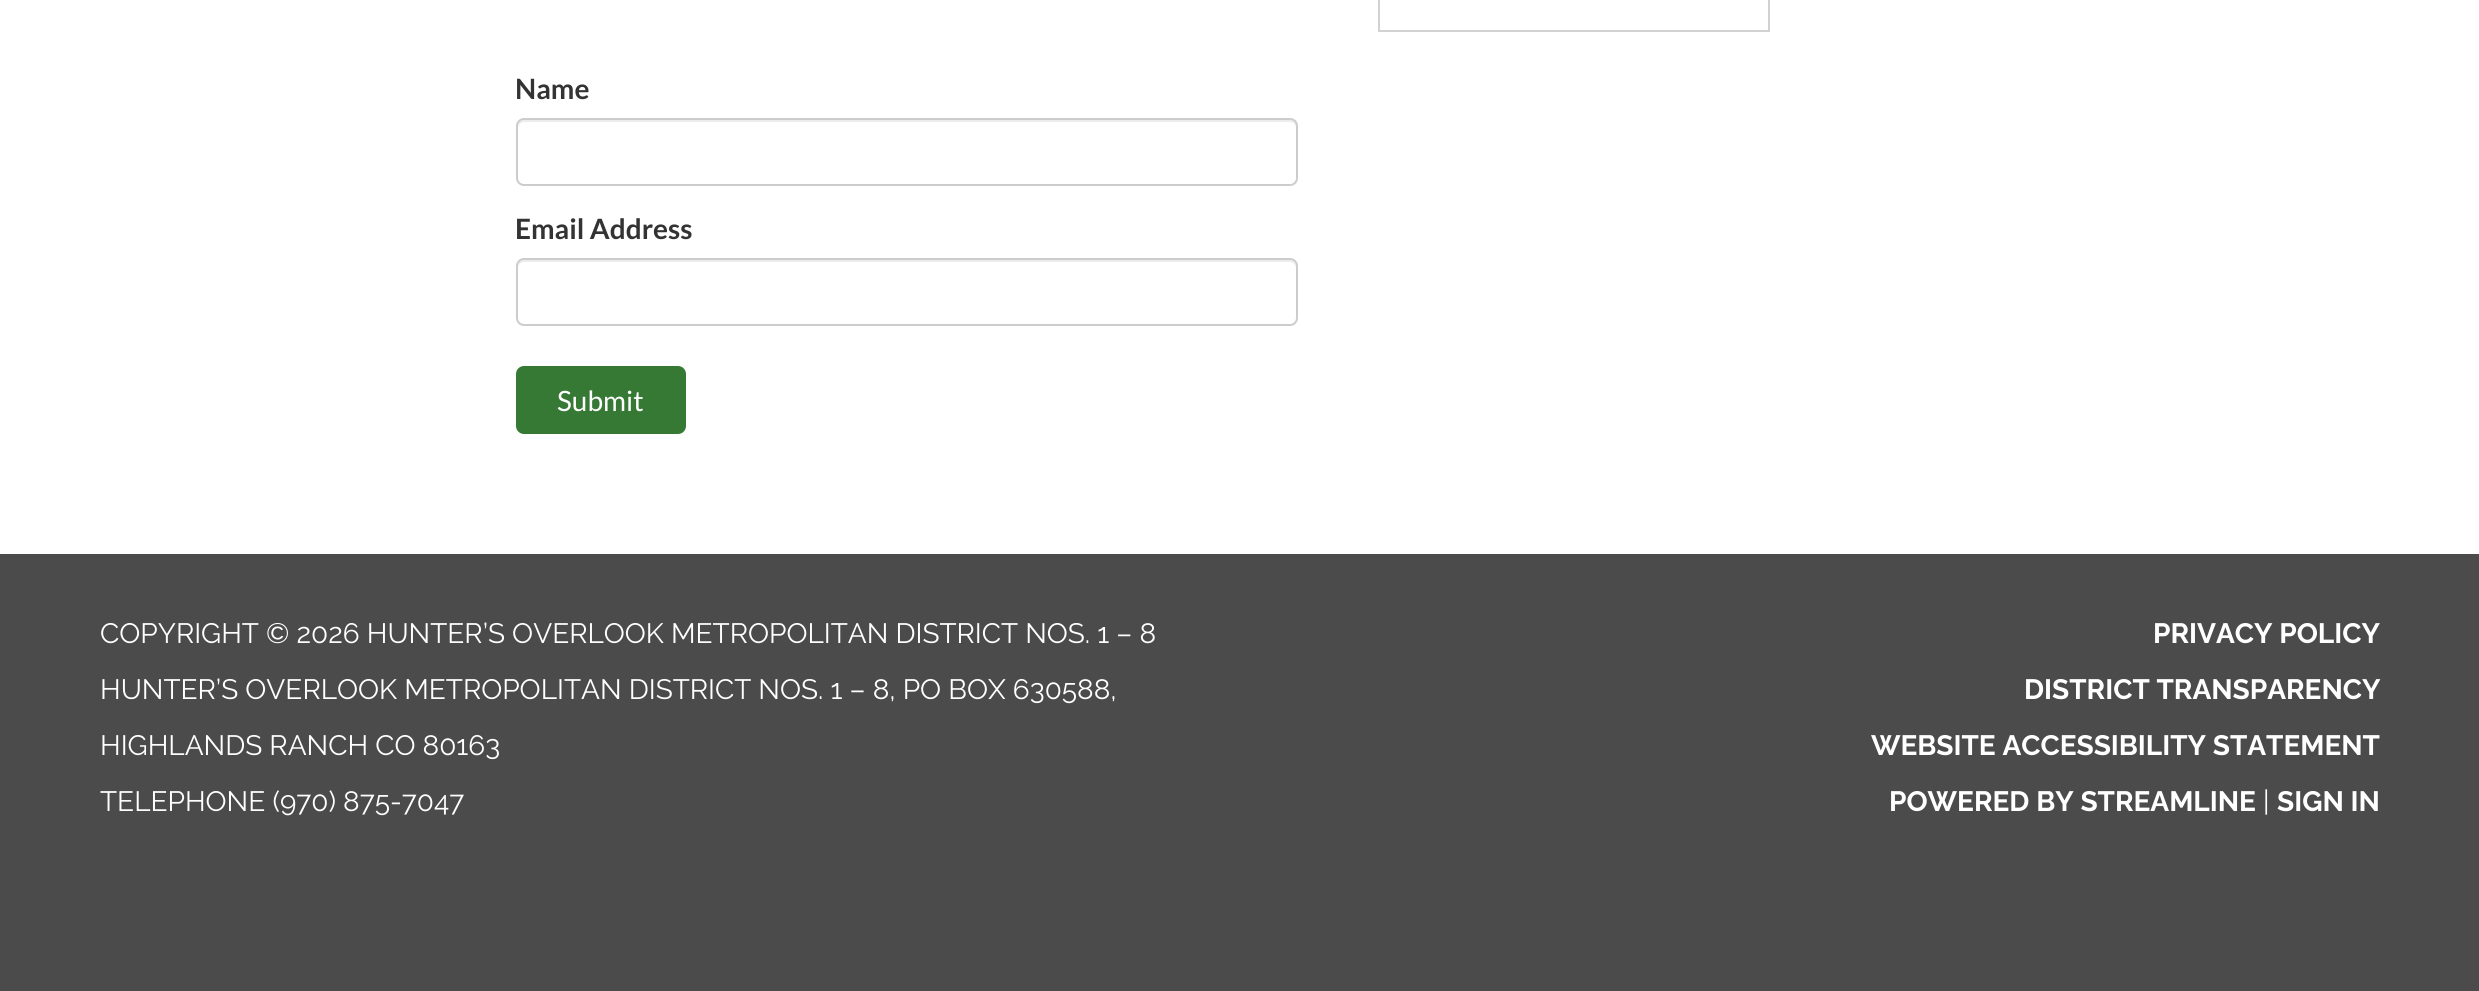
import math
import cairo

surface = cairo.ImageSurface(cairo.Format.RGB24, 2479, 991)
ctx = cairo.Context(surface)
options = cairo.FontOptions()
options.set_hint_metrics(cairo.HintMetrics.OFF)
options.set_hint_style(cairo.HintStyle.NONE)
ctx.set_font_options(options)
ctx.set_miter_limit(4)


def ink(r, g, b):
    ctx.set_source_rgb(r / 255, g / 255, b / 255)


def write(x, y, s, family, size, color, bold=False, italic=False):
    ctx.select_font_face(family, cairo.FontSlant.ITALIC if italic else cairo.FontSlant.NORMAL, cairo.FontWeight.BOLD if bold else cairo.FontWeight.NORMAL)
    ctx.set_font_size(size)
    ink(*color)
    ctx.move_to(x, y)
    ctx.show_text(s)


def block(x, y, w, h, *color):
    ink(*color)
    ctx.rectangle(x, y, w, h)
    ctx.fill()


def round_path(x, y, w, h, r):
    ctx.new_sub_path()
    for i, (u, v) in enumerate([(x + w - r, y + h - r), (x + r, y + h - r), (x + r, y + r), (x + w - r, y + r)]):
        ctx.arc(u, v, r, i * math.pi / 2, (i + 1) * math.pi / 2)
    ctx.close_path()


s1 = dict(family="Lato", size=28, color=(51, 51, 51), bold=True)
s2 = dict(family="Lato", size=28, color=(255, 255, 255))
s3 = dict(family="Raleway", size=28, color=(255, 255, 255))
s4 = dict(family="Raleway", size=28, color=(255, 255, 255), bold=True)

ink(75, 75, 75)
ctx.paint()
block(0, 0, 2479, 554, 255, 255, 255)
ctx.rectangle(1379, -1, 390, 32)
ink(208, 210, 212)
ctx.stroke()
write(515, 99, "Name", **s1)
ink(236, 236, 236)
ctx.new_path()
ctx.move_to(524, 122)
ctx.line_to(1290, 122)
ctx.curve_to(1293, 122, 1296, 125, 1296, 128)
ctx.line_to(1296, 126)
ctx.curve_to(1296, 123, 1293, 120, 1290, 120)
ctx.line_to(524, 120)
ctx.curve_to(521, 120, 518, 123, 518, 126)
ctx.line_to(518, 128)
ctx.curve_to(518, 125, 521, 122, 524, 122)
ctx.close_path()
ctx.fill()
round_path(517, 119, 780, 66, 7)
ink(204, 204, 204)
ctx.stroke()
write(515, 239, "Email Address", **s1)
ink(236, 236, 236)
ctx.new_path()
ctx.move_to(524, 262)
ctx.line_to(1290, 262)
ctx.curve_to(1293, 262, 1296, 265, 1296, 268)
ctx.line_to(1296, 266)
ctx.curve_to(1296, 263, 1293, 260, 1290, 260)
ctx.line_to(524, 260)
ctx.curve_to(521, 260, 518, 263, 518, 266)
ctx.line_to(518, 268)
ctx.curve_to(518, 265, 521, 262, 524, 262)
ctx.close_path()
ctx.fill()
round_path(517, 259, 780, 66, 7)
ink(204, 204, 204)
ctx.stroke()
ink(53, 121, 53)
round_path(517, 367, 168, 66, 7)
ctx.fill_preserve()
ctx.stroke()
write(557, 411, "Submit", **s2)
write(100, 643, "COPYRIGHT © 2026 HUNTER’S OVERLOOK METROPOLITAN DISTRICT NOS. 1 – 8", **s3)
write(100, 699, "HUNTER’S OVERLOOK METROPOLITAN DISTRICT NOS. 1 – 8, PO BOX 630588,", **s3)
write(100, 755, "HIGHLANDS RANCH CO 80163", **s3)
write(100, 811, "TELEPHONE (970) 875-7047", **s3)
write(2153, 643, "PRIVACY POLICY", **s4)
write(2024, 699, "DISTRICT TRANSPARENCY", **s4)
write(1871, 755, "WEBSITE ACCESSIBILITY STATEMENT", **s4)
write(1889, 811, "POWERED BY STREAMLINE", **s4)
write(2263, 811, "|", **s3)
write(2277, 811, "SIGN IN", **s4)
surface.write_to_png("screenshot.png")
